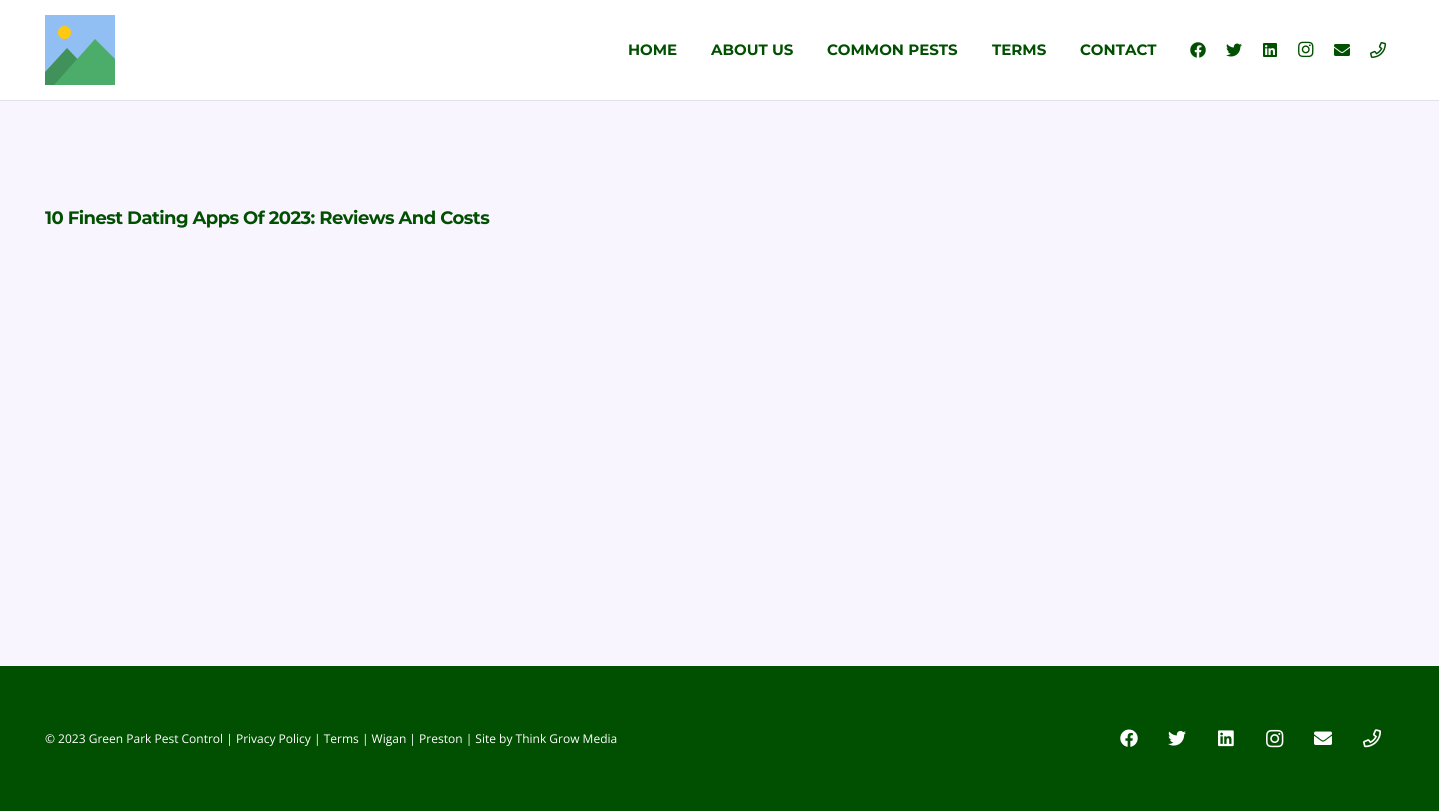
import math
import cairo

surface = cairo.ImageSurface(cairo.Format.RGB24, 1439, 811)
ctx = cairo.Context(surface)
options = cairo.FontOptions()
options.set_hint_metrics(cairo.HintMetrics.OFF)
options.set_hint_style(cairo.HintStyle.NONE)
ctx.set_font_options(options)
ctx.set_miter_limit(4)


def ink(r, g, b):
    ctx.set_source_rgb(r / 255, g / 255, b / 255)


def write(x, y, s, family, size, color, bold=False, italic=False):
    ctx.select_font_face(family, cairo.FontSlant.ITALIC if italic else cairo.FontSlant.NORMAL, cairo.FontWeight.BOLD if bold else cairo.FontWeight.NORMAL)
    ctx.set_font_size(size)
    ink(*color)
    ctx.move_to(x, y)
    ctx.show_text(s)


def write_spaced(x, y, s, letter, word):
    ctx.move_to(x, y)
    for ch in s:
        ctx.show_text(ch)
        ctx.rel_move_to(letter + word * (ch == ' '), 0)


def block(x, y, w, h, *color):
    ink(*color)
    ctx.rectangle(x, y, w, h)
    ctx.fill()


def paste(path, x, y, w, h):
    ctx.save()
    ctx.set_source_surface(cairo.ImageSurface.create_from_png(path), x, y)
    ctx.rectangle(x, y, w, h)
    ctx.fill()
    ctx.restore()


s1 = dict(family="Montserrat", size=15, color=(1, 79, 1), bold=True)
s2 = dict(family="Open Sans", size=12, color=(255, 255, 255))

ink(248, 245, 255)
ctx.paint()
block(0, 100, 1439, 1, 228, 225, 235)
block(0, 0, 1439, 100, 255, 255, 255)
block(45, 15, 70, 57, 145, 191, 244)
ink(64, 145, 90)
ctx.new_path()
ctx.move_to(102, 85)
ctx.line_to(45, 85)
ctx.line_to(45, 72)
ctx.line_to(67, 48)
ctx.close_path()
ctx.fill()
ink(76, 173, 107)
ctx.new_path()
ctx.move_to(115, 59)
ctx.line_to(115, 85)
ctx.line_to(54, 85)
ctx.line_to(95, 39)
ctx.close_path()
ctx.fill()
ink(255, 201, 15)
ctx.arc(64.5, 32.5, 6.5, 0, 2 * math.pi)
ctx.fill()
write(628, 55, "HOME", **s1)
write(711, 55, "ABOUT US", **s1)
write(827, 55, "COMMON PESTS", **s1)
write(992, 55, "TERMS", **s1)
write(1080, 55, "CONTACT", **s1)
paste("pic1.png", 1190, 42, 16, 16)
paste("pic2.png", 1226, 43, 16, 14)
paste("pic3.png", 1263, 43, 14, 14)
paste("pic4.png", 1298, 41, 16, 17)
paste("pic5.png", 1334, 44, 16, 12)
paste("pic6.png", 1370, 42, 16, 16)
ctx.set_font_size(18)
write_spaced(45, 224, "10 Finest Dating Apps Of 2023: Reviews And Costs", -0.55, 0)
block(0, 666, 1439, 145, 1, 79, 1)
write(45, 743, "© 2023 Green Park Pest Control | Privacy Policy | Terms | Wigan | Preston | Site by Think Grow Media", **s2)
paste("pic7.png", 1120, 729, 18, 18)
paste("pic8.png", 1168, 730, 18, 16)
paste("pic9.png", 1218, 730, 16, 17)
paste("pic10.png", 1266, 729, 18, 19)
paste("pic11.png", 1314, 731, 18, 14)
paste("pic12.png", 1363, 729, 18, 19)
surface.write_to_png("screenshot.png")
